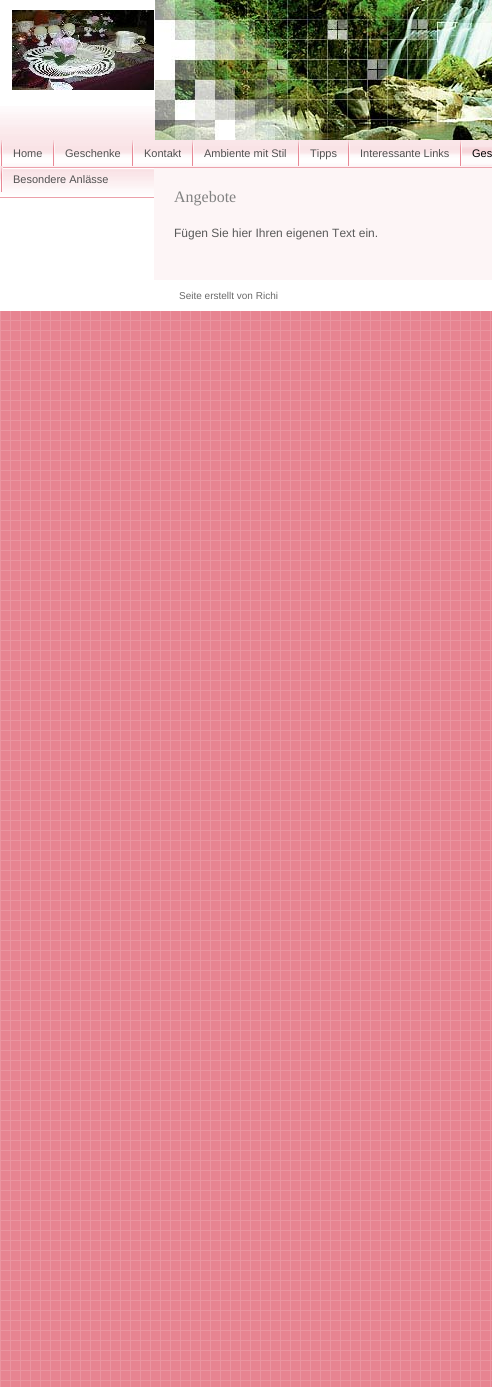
import math
import cairo

surface = cairo.ImageSurface(cairo.Format.RGB24, 492, 1387)
ctx = cairo.Context(surface)
options = cairo.FontOptions()
options.set_hint_metrics(cairo.HintMetrics.OFF)
options.set_hint_style(cairo.HintStyle.NONE)
ctx.set_font_options(options)
ctx.set_miter_limit(4)


def ink(r, g, b):
    ctx.set_source_rgb(r / 255, g / 255, b / 255)


def write(x, y, s, family, size, color, bold=False, italic=False):
    ctx.select_font_face(family, cairo.FontSlant.ITALIC if italic else cairo.FontSlant.NORMAL, cairo.FontWeight.BOLD if bold else cairo.FontWeight.NORMAL)
    ctx.set_font_size(size)
    ink(*color)
    ctx.move_to(x, y)
    ctx.show_text(s)


def block(x, y, w, h, *color):
    ink(*color)
    ctx.rectangle(x, y, w, h)
    ctx.fill()


def paste(path, x, y, w, h):
    ctx.save()
    ctx.set_source_surface(cairo.ImageSurface.create_from_png(path), x, y)
    ctx.rectangle(x, y, w, h)
    ctx.fill()
    ctx.restore()


s1 = dict(family="Liberation Sans", size=11, color=(81, 81, 81))
s2 = dict(family="Liberation Sans", size=11, color=(0, 0, 0))
s3 = dict(family="Liberation Serif", size=16, color=(129, 129, 129))
s4 = dict(family="Liberation Sans", size=12, color=(89, 89, 89))
s5 = dict(family="Liberation Sans", size=10, color=(105, 105, 105))

ink(255, 255, 255)
ctx.paint()
paste("pic1.png", 0, 311, 492, 1076)
paste("pic2.png", 0, 106, 155, 34)
paste("pic3.png", 12, 10, 142, 80)
paste("pic4.png", 155, 0, 337, 140)
paste("pic5.png", 0, 140, 492, 28)
paste("pic6.png", 1, 140, 2, 26)
write(13, 157, "Home", **s1)
paste("pic6.png", 53, 140, 2, 26)
write(65, 157, "Geschenke", **s1)
paste("pic6.png", 132, 140, 2, 26)
write(144, 157, "Kontakt", **s1)
paste("pic6.png", 192, 140, 2, 26)
write(204, 157, "Ambiente mit Stil", **s1)
paste("pic6.png", 298, 140, 2, 26)
write(310, 157, "Tipps", **s1)
paste("pic6.png", 348, 140, 2, 26)
write(360, 157, "Interessante Links", **s1)
paste("pic6.png", 460, 140, 2, 26)
paste("pic7.png", 462, 147, 30, 19)
write(472, 157, "Ges", **s2)
paste("pic9.png", 0, 169, 154, 29)
paste("pic8.png", 0, 166, 3, 26)
write(13, 183, "Besondere Anlässe", **s1)
block(154, 168, 338, 112, 253, 245, 246)
write(174, 202, "Angebote", **s3)
write(174, 237, "Fügen Sie hier Ihren eigenen Text ein.", **s4)
write(179, 299, "Seite erstellt von Richi", **s5)
surface.write_to_png("screenshot.png")
